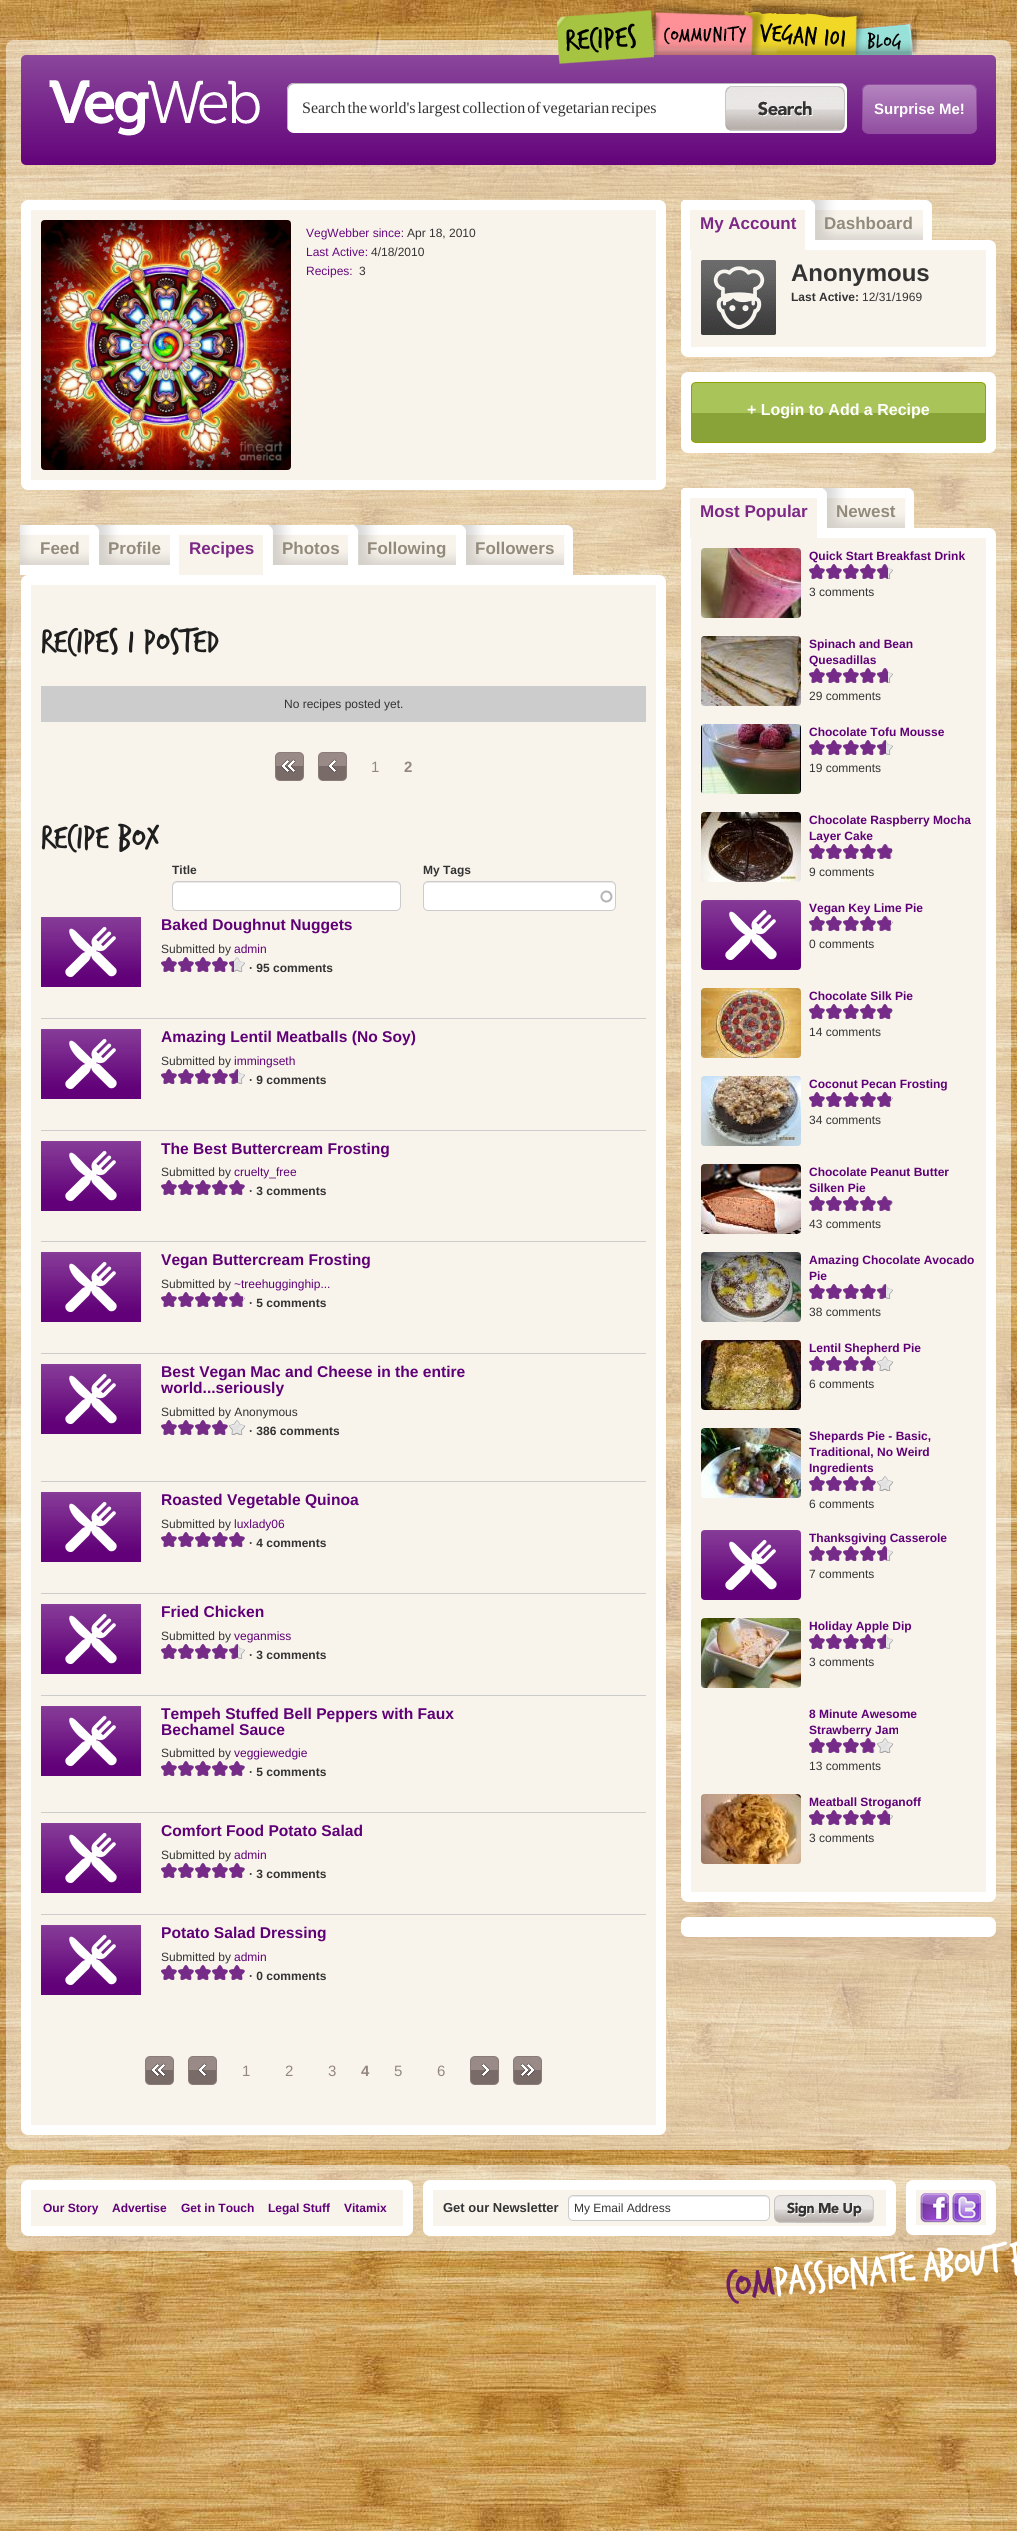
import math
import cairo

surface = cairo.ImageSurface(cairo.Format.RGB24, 1017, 2531)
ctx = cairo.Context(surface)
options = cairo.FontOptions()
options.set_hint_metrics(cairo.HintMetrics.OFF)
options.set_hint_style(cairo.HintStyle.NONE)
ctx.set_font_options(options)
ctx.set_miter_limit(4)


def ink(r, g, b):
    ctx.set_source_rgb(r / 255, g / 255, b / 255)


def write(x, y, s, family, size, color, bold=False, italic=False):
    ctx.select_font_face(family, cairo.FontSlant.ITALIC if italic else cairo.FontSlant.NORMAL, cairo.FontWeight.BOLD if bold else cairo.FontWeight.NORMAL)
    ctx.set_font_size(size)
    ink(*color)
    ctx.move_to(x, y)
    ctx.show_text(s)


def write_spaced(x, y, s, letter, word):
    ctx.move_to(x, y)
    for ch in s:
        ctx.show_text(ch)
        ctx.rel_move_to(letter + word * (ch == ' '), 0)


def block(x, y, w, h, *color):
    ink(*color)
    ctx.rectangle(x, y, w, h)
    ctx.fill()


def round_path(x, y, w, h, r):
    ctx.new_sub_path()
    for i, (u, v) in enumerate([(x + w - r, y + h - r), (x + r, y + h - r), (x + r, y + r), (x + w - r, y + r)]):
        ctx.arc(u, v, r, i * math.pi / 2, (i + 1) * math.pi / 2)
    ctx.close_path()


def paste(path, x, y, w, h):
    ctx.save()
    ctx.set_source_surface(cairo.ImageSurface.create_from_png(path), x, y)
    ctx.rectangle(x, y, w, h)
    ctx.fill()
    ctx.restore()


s1 = dict(family="Liberation Sans", size=15, color=(255, 255, 255), bold=True)
s2 = dict(family="Liberation Sans", size=12, color=(102, 9, 125))
s3 = dict(family="Liberation Sans", size=12, color=(51, 51, 51))
s4 = dict(family="Liberation Sans", size=17, color=(146, 138, 123), bold=True)
s5 = dict(family="Liberation Sans", size=17, color=(124, 41, 133), bold=True)
s6 = dict(family="Liberation Sans", size=15, color=(148, 134, 131))
s7 = dict(family="Liberation Sans", size=15, color=(148, 134, 131), bold=True)
s8 = dict(family="Liberation Sans", size=12, color=(51, 51, 51), bold=True)
s9 = dict(family="Liberation Sans", size=15.6, color=(95, 0, 118), bold=True)
s10 = dict(family="Liberation Sans", size=12, color=(95, 0, 118))
s11 = dict(family="Liberation Sans", size=24, color=(51, 51, 51), bold=True)
s12 = dict(family="Liberation Sans", size=16, color=(255, 255, 255), bold=True)
s13 = dict(family="Liberation Sans", size=12, color=(95, 0, 118), bold=True)
s14 = dict(family="Liberation Sans", size=13, color=(51, 51, 51), bold=True)

ink(255, 255, 255)
ctx.paint()
paste("pic1.png", 0, 0, 1017, 2531)
paste("pic2.png", 0, 124, 5, 46)
paste("pic3.png", 6, 40, 1005, 2110)
gradient = cairo.LinearGradient(21, 55, 21, 165)
gradient.add_color_stop_rgba(0, 0.541, 0.278, 0.608, 1)
gradient.add_color_stop_rgba(1, 0.388, 0.012, 0.478, 1)
ctx.set_source(gradient)
round_path(21, 55, 975, 110, 5)
ctx.fill()
paste("pic4.png", 557, 3, 363, 61)
paste("pic5.png", 49, 80, 211, 56)
ink(255, 255, 255)
round_path(287, 83, 560, 50, 7)
ctx.fill()
ink(185, 184, 184)
ctx.new_path()
ctx.move_to(295, 84)
ctx.line_to(841, 84)
ctx.curve_to(843, 84, 844, 84, 845, 85)
ctx.curve_to(844, 84, 842, 83, 840, 83)
ctx.line_to(294, 83)
ctx.curve_to(290, 83, 287, 86, 287, 90)
ctx.line_to(287, 126)
ctx.curve_to(287, 128, 288, 130, 289, 131)
ctx.curve_to(288, 130, 288, 129, 288, 127)
ctx.line_to(288, 91)
ctx.curve_to(288, 87, 291, 84, 295, 84)
ctx.close_path()
ctx.fill()
ctx.select_font_face("Liberation Serif")
ctx.set_font_size(16)
ink(51, 51, 51)
write_spaced(302, 113, "Search the world's largest collection of vegetarian recipes", 0, -2)
paste("pic6.png", 725, 86, 120, 45)
ctx.save()
round_path(862, 84, 115, 50, 7)
ctx.clip()
gradient = cairo.LinearGradient(863, 85, 863, 133)
gradient.add_color_stop_rgba(0, 0.702, 0.518, 0.745, 1)
gradient.add_color_stop_rgba(1, 0.573, 0.306, 0.631, 1)
ctx.set_source(gradient)
ctx.rectangle(862, 85, 115, 48)
ctx.fill()
ctx.restore()
round_path(862.5, 84.5, 114, 49, 6.5)
ink(146, 78, 161)
ctx.set_line_width(1)
ctx.stroke()
write(874, 114, "Surprise Me!", **s1)
round_path(21, 200, 645, 290, 7)
ctx.fill()
block(31, 210, 625, 270, 248, 244, 235)
paste("pic7.png", 41, 220, 250, 250)
write(306, 237, "VegWebber since:", **s2)
write(407, 237, "Apr 18, 2010", **s3)
write(306, 256, "Last Active:", **s2)
write(371, 256, "4/18/2010", **s3)
write(306, 275, "Recipes:", **s2)
write(359, 275, "3", **s3)
paste("pic8.png", 20, 525, 70, 50)
write(40, 554, "Feed", **s4)
paste("pic9.png", 171, 525, 1, 1)
paste("pic10.png", 89, 525, 82, 50)
write(108, 554, "Profile", **s4)
paste("pic11.png", 170, 525, 93, 50)
write(189, 554, "Recipes", **s5)
paste("pic12.png", 263, 525, 86, 50)
write(282, 554, "Photos", **s4)
paste("pic13.png", 348, 525, 108, 50)
write(367, 554, "Following", **s4)
paste("pic14.png", 564, 525, 9, 50)
paste("pic15.png", 456, 525, 108, 50)
write(475, 554, "Followers", **s4)
ink(255, 255, 255)
ctx.new_path()
ctx.move_to(28, 575)
ctx.line_to(659, 575)
ctx.curve_to(663, 575, 666, 578, 666, 582)
ctx.line_to(666, 811)
ctx.line_to(21, 811)
ctx.line_to(21, 582)
ctx.curve_to(21, 578, 24, 575, 28, 575)
ctx.close_path()
ctx.fill()
block(31, 585, 625, 226, 248, 244, 235)
ctx.select_font_face("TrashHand")
ctx.set_font_size(36)
ink(31, 30, 30)
write_spaced(41, 651, "Recipes I posted", 0.1, 0)
block(41, 686, 605, 36, 204, 204, 204)
write(284, 708, "No recipes posted yet.", **s3)
paste("pic16.png", 275, 752, 29, 29)
paste("pic17.png", 318, 752, 29, 29)
write(371, 772, "1", **s6)
write(404, 772, "2", **s7)
ink(255, 255, 255)
ctx.new_path()
ctx.move_to(21, 811)
ctx.line_to(666, 811)
ctx.line_to(666, 2128)
ctx.curve_to(666, 2132, 663, 2135, 659, 2135)
ctx.line_to(28, 2135)
ctx.curve_to(24, 2135, 21, 2132, 21, 2128)
ctx.close_path()
ctx.fill()
block(31, 811, 625, 1314, 248, 244, 235)
ctx.select_font_face("TrashHand")
ctx.set_font_size(36)
ink(31, 30, 30)
write_spaced(41, 847, "Recipe Box", 0.1, 0)
write(172, 874, "Title", **s8)
ink(255, 255, 255)
round_path(172, 881, 229, 30, 5)
ctx.fill()
ink(232, 232, 232)
ctx.new_path()
ctx.move_to(177, 883)
ctx.line_to(396, 883)
ctx.curve_to(398, 883, 400, 885, 400, 887)
ctx.curve_to(400, 884, 399, 882, 396, 882)
ctx.line_to(177, 882)
ctx.curve_to(174, 882, 173, 884, 173, 887)
ctx.curve_to(173, 885, 175, 883, 177, 883)
ctx.close_path()
ctx.fill()
round_path(172.5, 881.5, 228, 29, 4.5)
ink(204, 204, 204)
ctx.stroke()
write(423, 874, "My Tags", **s8)
ink(255, 255, 255)
round_path(423, 881, 193, 30, 5)
ctx.fill()
paste("pic18.png", 600, 890, 13, 13)
ink(232, 232, 232)
ctx.new_path()
ctx.move_to(428, 883)
ctx.line_to(611, 883)
ctx.curve_to(613, 883, 615, 885, 615, 887)
ctx.curve_to(615, 884, 614, 882, 611, 882)
ctx.line_to(427, 882)
ctx.curve_to(425, 883, 424, 885, 424, 887)
ctx.curve_to(424, 885, 426, 883, 428, 883)
ctx.close_path()
ctx.fill()
round_path(423.5, 881.5, 192, 29, 4.5)
ink(204, 204, 204)
ctx.stroke()
block(41, 1018, 605, 1, 204, 204, 204)
paste("pic19.png", 41, 917, 100, 70)
write(161, 930, "Baked Doughnut Nuggets", **s9)
write(161, 953, "Submitted by", **s3)
write(234, 953, "admin", **s10)
paste("pic20.png", 161, 957, 16, 15)
paste("pic21.png", 161, 957, 16, 15)
paste("pic20.png", 178, 957, 16, 15)
paste("pic21.png", 178, 957, 16, 15)
paste("pic20.png", 195, 957, 16, 15)
paste("pic21.png", 195, 957, 16, 15)
paste("pic20.png", 212, 957, 16, 15)
paste("pic21.png", 212, 957, 16, 15)
paste("pic20.png", 229, 957, 16, 15)
paste("pic22.png", 229, 960, 5, 12)
write(249, 972, "· 95 comments", **s8)
block(41, 1130, 605, 1, 204, 204, 204)
paste("pic19.png", 41, 1029, 100, 70)
write(161, 1042, "Amazing Lentil Meatballs (No Soy)", **s9)
write(161, 1065, "Submitted by", **s3)
write(234, 1065, "immingseth", **s10)
paste("pic20.png", 161, 1069, 16, 15)
paste("pic21.png", 161, 1069, 16, 15)
paste("pic20.png", 178, 1069, 16, 15)
paste("pic21.png", 178, 1069, 16, 15)
paste("pic20.png", 195, 1069, 16, 15)
paste("pic21.png", 195, 1069, 16, 15)
paste("pic20.png", 212, 1069, 16, 15)
paste("pic21.png", 212, 1069, 16, 15)
paste("pic20.png", 229, 1069, 16, 15)
paste("pic23.png", 229, 1069, 9, 15)
write(249, 1084, "· 9 comments", **s8)
block(41, 1241, 605, 1, 204, 204, 204)
paste("pic19.png", 41, 1141, 100, 70)
write(161, 1154, "The Best Buttercream Frosting", **s9)
write(161, 1176, "Submitted by", **s3)
write(234, 1176, "cruelty_free", **s10)
paste("pic20.png", 161, 1180, 16, 15)
paste("pic21.png", 161, 1180, 16, 15)
paste("pic20.png", 178, 1180, 16, 15)
paste("pic21.png", 178, 1180, 16, 15)
paste("pic20.png", 195, 1180, 16, 15)
paste("pic21.png", 195, 1180, 16, 15)
paste("pic20.png", 212, 1180, 16, 15)
paste("pic21.png", 212, 1180, 16, 15)
paste("pic20.png", 229, 1180, 16, 15)
paste("pic21.png", 229, 1180, 16, 15)
write(249, 1195, "· 3 comments", **s8)
block(41, 1353, 605, 1, 204, 204, 204)
paste("pic19.png", 41, 1252, 100, 70)
write(161, 1265, "Vegan Buttercream Frosting", **s9)
write(161, 1288, "Submitted by", **s3)
write(234, 1288, "~treehugginghip...", **s10)
paste("pic20.png", 161, 1292, 16, 15)
paste("pic21.png", 161, 1292, 16, 15)
paste("pic20.png", 178, 1292, 16, 15)
paste("pic21.png", 178, 1292, 16, 15)
paste("pic20.png", 195, 1292, 16, 15)
paste("pic21.png", 195, 1292, 16, 15)
paste("pic20.png", 212, 1292, 16, 15)
paste("pic21.png", 212, 1292, 16, 15)
paste("pic20.png", 229, 1292, 16, 15)
paste("pic24.png", 229, 1292, 14, 15)
write(249, 1307, "· 5 comments", **s8)
block(41, 1481, 605, 1, 204, 204, 204)
paste("pic19.png", 41, 1364, 100, 70)
write(161, 1377, "Best Vegan Mac and Cheese in the entire", **s9)
write(161, 1393, "world...seriously", **s9)
write(161, 1416, "Submitted by Anonymous", **s3)
paste("pic20.png", 161, 1420, 16, 15)
paste("pic21.png", 161, 1420, 16, 15)
paste("pic20.png", 178, 1420, 16, 15)
paste("pic21.png", 178, 1420, 16, 15)
paste("pic20.png", 195, 1420, 16, 15)
paste("pic21.png", 195, 1420, 16, 15)
paste("pic20.png", 212, 1420, 16, 15)
paste("pic21.png", 212, 1420, 16, 15)
paste("pic20.png", 229, 1420, 16, 15)
paste("pic25.png", 229, 1420, 16, 15)
write(249, 1435, "· 386 comments", **s8)
block(41, 1593, 605, 1, 204, 204, 204)
paste("pic19.png", 41, 1492, 100, 70)
write(161, 1505, "Roasted Vegetable Quinoa", **s9)
write(161, 1528, "Submitted by", **s3)
write(234, 1528, "luxlady06", **s10)
paste("pic20.png", 161, 1532, 16, 15)
paste("pic21.png", 161, 1532, 16, 15)
paste("pic20.png", 178, 1532, 16, 15)
paste("pic21.png", 178, 1532, 16, 15)
paste("pic20.png", 195, 1532, 16, 15)
paste("pic21.png", 195, 1532, 16, 15)
paste("pic20.png", 212, 1532, 16, 15)
paste("pic21.png", 212, 1532, 16, 15)
paste("pic20.png", 229, 1532, 16, 15)
paste("pic21.png", 229, 1532, 16, 15)
write(249, 1547, "· 4 comments", **s8)
block(41, 1695, 605, 1, 204, 204, 204)
paste("pic19.png", 41, 1604, 100, 70)
write(161, 1617, "Fried Chicken", **s9)
write(161, 1640, "Submitted by", **s3)
write(234, 1640, "veganmiss", **s10)
paste("pic20.png", 161, 1644, 16, 15)
paste("pic21.png", 161, 1644, 16, 15)
paste("pic20.png", 178, 1644, 16, 15)
paste("pic21.png", 178, 1644, 16, 15)
paste("pic20.png", 195, 1644, 16, 15)
paste("pic21.png", 195, 1644, 16, 15)
paste("pic20.png", 212, 1644, 16, 15)
paste("pic21.png", 212, 1644, 16, 15)
paste("pic20.png", 229, 1644, 16, 15)
paste("pic23.png", 229, 1644, 9, 15)
write(249, 1659, "· 3 comments", **s8)
block(41, 1812, 605, 1, 204, 204, 204)
paste("pic19.png", 41, 1706, 100, 70)
write(161, 1719, "Tempeh Stuffed Bell Peppers with Faux", **s9)
write(161, 1735, "Bechamel Sauce", **s9)
write(161, 1757, "Submitted by", **s3)
write(234, 1757, "veggiewedgie", **s10)
paste("pic20.png", 161, 1761, 16, 15)
paste("pic21.png", 161, 1761, 16, 15)
paste("pic20.png", 178, 1761, 16, 15)
paste("pic21.png", 178, 1761, 16, 15)
paste("pic20.png", 195, 1761, 16, 15)
paste("pic21.png", 195, 1761, 16, 15)
paste("pic20.png", 212, 1761, 16, 15)
paste("pic21.png", 212, 1761, 16, 15)
paste("pic20.png", 229, 1761, 16, 15)
paste("pic21.png", 229, 1761, 16, 15)
write(249, 1776, "· 5 comments", **s8)
block(41, 1914, 605, 1, 204, 204, 204)
paste("pic19.png", 41, 1823, 100, 70)
write(161, 1836, "Comfort Food Potato Salad", **s9)
write(161, 1859, "Submitted by", **s3)
write(234, 1859, "admin", **s10)
paste("pic20.png", 161, 1863, 16, 15)
paste("pic21.png", 161, 1863, 16, 15)
paste("pic20.png", 178, 1863, 16, 15)
paste("pic21.png", 178, 1863, 16, 15)
paste("pic20.png", 195, 1863, 16, 15)
paste("pic21.png", 195, 1863, 16, 15)
paste("pic20.png", 212, 1863, 16, 15)
paste("pic21.png", 212, 1863, 16, 15)
paste("pic20.png", 229, 1863, 16, 15)
paste("pic21.png", 229, 1863, 16, 15)
write(249, 1878, "· 3 comments", **s8)
paste("pic19.png", 41, 1925, 100, 70)
write(161, 1938, "Potato Salad Dressing", **s9)
write(161, 1961, "Submitted by", **s3)
write(234, 1961, "admin", **s10)
paste("pic20.png", 161, 1965, 16, 15)
paste("pic21.png", 161, 1965, 16, 15)
paste("pic20.png", 178, 1965, 16, 15)
paste("pic21.png", 178, 1965, 16, 15)
paste("pic20.png", 195, 1965, 16, 15)
paste("pic21.png", 195, 1965, 16, 15)
paste("pic20.png", 212, 1965, 16, 15)
paste("pic21.png", 212, 1965, 16, 15)
paste("pic20.png", 229, 1965, 16, 15)
paste("pic21.png", 229, 1965, 16, 15)
write(249, 1980, "· 0 comments", **s8)
paste("pic16.png", 145, 2056, 29, 29)
paste("pic17.png", 188, 2056, 29, 29)
write(242, 2076, "1", **s6)
write(285, 2076, "2", **s6)
write(328, 2076, "3", **s6)
write(361, 2076, "4", **s7)
write(394, 2076, "5", **s6)
write(437, 2076, "6", **s6)
paste("pic26.png", 470, 2056, 29, 29)
paste("pic27.png", 513, 2056, 29, 29)
ink(255, 255, 255)
ctx.new_path()
ctx.move_to(681, 240)
ctx.line_to(989, 240)
ctx.curve_to(993, 240, 996, 243, 996, 247)
ctx.line_to(996, 350)
ctx.curve_to(996, 354, 993, 357, 989, 357)
ctx.line_to(688, 357)
ctx.curve_to(684, 357, 681, 354, 681, 350)
ctx.close_path()
ctx.fill()
paste("pic28.png", 681, 200, 125, 50)
write(700, 229, "My Account", **s5)
paste("pic29.png", 923, 200, 9, 40)
paste("pic30.png", 805, 200, 118, 50)
write(824, 229, "Dashboard", **s4)
block(691, 250, 295, 97, 248, 244, 236)
paste("pic31.png", 701, 260, 75, 75)
write(791, 281, "Anonymous", **s11)
write(791, 301, "Last Active:", **s8)
write(862, 301, "12/31/1969", **s3)
ink(255, 255, 255)
round_path(681, 372, 315, 81, 7)
ctx.fill()
ctx.save()
round_path(691, 382, 295, 61, 5)
ctx.clip()
block(691, 383, 295, 30, 169, 196, 89)
block(691, 413, 295, 29, 138, 163, 57)
ctx.restore()
round_path(691.5, 382.5, 294, 60, 4.5)
ink(147, 160, 6)
ctx.stroke()
write(747, 415, "+ Login to Add a Recipe", **s12)
ctx.new_path()
ctx.move_to(681, 528)
ctx.line_to(989, 528)
ctx.curve_to(993, 528, 996, 531, 996, 535)
ctx.line_to(996, 1895)
ctx.curve_to(996, 1899, 993, 1902, 989, 1902)
ctx.line_to(688, 1902)
ctx.curve_to(684, 1902, 681, 1899, 681, 1895)
ctx.close_path()
ctx.fill()
paste("pic32.png", 681, 488, 136, 50)
write(700, 517, "Most Popular", **s5)
paste("pic33.png", 905, 488, 9, 40)
paste("pic34.png", 817, 488, 88, 50)
write(836, 517, "Newest", **s4)
block(691, 538, 295, 1354, 248, 244, 236)
paste("pic35.png", 701, 548, 100, 70)
write(809, 560, "Quick Start Breakfast Drink", **s13)
paste("pic36.png", 809, 564, 16, 15)
paste("pic37.png", 809, 564, 16, 15)
paste("pic36.png", 826, 564, 16, 15)
paste("pic37.png", 826, 564, 16, 15)
paste("pic36.png", 843, 564, 16, 15)
paste("pic37.png", 843, 564, 16, 15)
paste("pic36.png", 860, 564, 16, 15)
paste("pic37.png", 860, 564, 16, 15)
paste("pic36.png", 877, 564, 16, 15)
paste("pic38.png", 877, 564, 11, 15)
write(809, 596, "3 comments", **s3)
paste("pic39.png", 701, 636, 100, 70)
write(809, 648, "Spinach and Bean", **s13)
write(809, 664, "Quesadillas", **s13)
paste("pic36.png", 809, 668, 16, 15)
paste("pic37.png", 809, 668, 16, 15)
paste("pic36.png", 826, 668, 16, 15)
paste("pic37.png", 826, 668, 16, 15)
paste("pic36.png", 843, 668, 16, 15)
paste("pic37.png", 843, 668, 16, 15)
paste("pic36.png", 860, 668, 16, 15)
paste("pic37.png", 860, 668, 16, 15)
paste("pic36.png", 877, 668, 16, 15)
paste("pic40.png", 877, 668, 11, 15)
write(809, 700, "29 comments", **s3)
paste("pic41.png", 701, 724, 100, 70)
write(809, 736, "Chocolate Tofu Mousse", **s13)
paste("pic36.png", 809, 740, 16, 15)
paste("pic37.png", 809, 740, 16, 15)
paste("pic36.png", 826, 740, 16, 15)
paste("pic37.png", 826, 740, 16, 15)
paste("pic36.png", 843, 740, 16, 15)
paste("pic37.png", 843, 740, 16, 15)
paste("pic36.png", 860, 740, 16, 15)
paste("pic37.png", 860, 740, 16, 15)
paste("pic36.png", 877, 740, 16, 15)
paste("pic42.png", 877, 740, 9, 15)
write(809, 772, "19 comments", **s3)
paste("pic43.png", 701, 812, 100, 70)
write(809, 824, "Chocolate Raspberry Mocha", **s13)
write(809, 840, "Layer Cake", **s13)
paste("pic36.png", 809, 844, 16, 15)
paste("pic37.png", 809, 844, 16, 15)
paste("pic36.png", 826, 844, 16, 15)
paste("pic37.png", 826, 844, 16, 15)
paste("pic36.png", 843, 844, 16, 15)
paste("pic37.png", 843, 844, 16, 15)
paste("pic36.png", 860, 844, 16, 15)
paste("pic37.png", 860, 844, 16, 15)
paste("pic36.png", 877, 844, 16, 15)
paste("pic44.png", 877, 844, 15, 15)
write(809, 876, "9 comments", **s3)
paste("pic45.png", 701, 900, 100, 70)
write(809, 912, "Vegan Key Lime Pie", **s13)
paste("pic36.png", 809, 916, 16, 15)
paste("pic37.png", 809, 916, 16, 15)
paste("pic36.png", 826, 916, 16, 15)
paste("pic37.png", 826, 916, 16, 15)
paste("pic36.png", 843, 916, 16, 15)
paste("pic37.png", 843, 916, 16, 15)
paste("pic36.png", 860, 916, 16, 15)
paste("pic37.png", 860, 916, 16, 15)
paste("pic36.png", 877, 916, 16, 15)
paste("pic46.png", 877, 916, 14, 15)
write(809, 948, "0 comments", **s3)
paste("pic47.png", 701, 988, 100, 70)
write(809, 1000, "Chocolate Silk Pie", **s13)
paste("pic36.png", 809, 1004, 16, 15)
paste("pic37.png", 809, 1004, 16, 15)
paste("pic36.png", 826, 1004, 16, 15)
paste("pic37.png", 826, 1004, 16, 15)
paste("pic36.png", 843, 1004, 16, 15)
paste("pic37.png", 843, 1004, 16, 15)
paste("pic36.png", 860, 1004, 16, 15)
paste("pic37.png", 860, 1004, 16, 15)
paste("pic36.png", 877, 1004, 16, 15)
paste("pic48.png", 877, 1004, 15, 15)
write(809, 1036, "14 comments", **s3)
paste("pic49.png", 701, 1076, 100, 70)
write(809, 1088, "Coconut Pecan Frosting", **s13)
paste("pic36.png", 809, 1092, 16, 15)
paste("pic37.png", 809, 1092, 16, 15)
paste("pic36.png", 826, 1092, 16, 15)
paste("pic37.png", 826, 1092, 16, 15)
paste("pic36.png", 843, 1092, 16, 15)
paste("pic37.png", 843, 1092, 16, 15)
paste("pic36.png", 860, 1092, 16, 15)
paste("pic37.png", 860, 1092, 16, 15)
paste("pic36.png", 877, 1092, 16, 15)
paste("pic50.png", 877, 1092, 14, 15)
write(809, 1124, "34 comments", **s3)
paste("pic51.png", 701, 1164, 100, 70)
write(809, 1176, "Chocolate Peanut Butter", **s13)
write(809, 1192, "Silken Pie", **s13)
paste("pic36.png", 809, 1196, 16, 15)
paste("pic37.png", 809, 1196, 16, 15)
paste("pic36.png", 826, 1196, 16, 15)
paste("pic37.png", 826, 1196, 16, 15)
paste("pic36.png", 843, 1196, 16, 15)
paste("pic37.png", 843, 1196, 16, 15)
paste("pic36.png", 860, 1196, 16, 15)
paste("pic37.png", 860, 1196, 16, 15)
paste("pic36.png", 877, 1196, 16, 15)
paste("pic52.png", 877, 1196, 15, 15)
write(809, 1228, "43 comments", **s3)
paste("pic53.png", 701, 1252, 100, 70)
write(809, 1264, "Amazing Chocolate Avocado", **s13)
write(809, 1280, "Pie", **s13)
paste("pic36.png", 809, 1284, 16, 15)
paste("pic37.png", 809, 1284, 16, 15)
paste("pic36.png", 826, 1284, 16, 15)
paste("pic37.png", 826, 1284, 16, 15)
paste("pic36.png", 843, 1284, 16, 15)
paste("pic37.png", 843, 1284, 16, 15)
paste("pic36.png", 860, 1284, 16, 15)
paste("pic37.png", 860, 1284, 16, 15)
paste("pic36.png", 877, 1284, 16, 15)
paste("pic42.png", 877, 1284, 9, 15)
write(809, 1316, "38 comments", **s3)
paste("pic54.png", 701, 1340, 100, 70)
write(809, 1352, "Lentil Shepherd Pie", **s13)
paste("pic36.png", 809, 1356, 16, 15)
paste("pic37.png", 809, 1356, 16, 15)
paste("pic36.png", 826, 1356, 16, 15)
paste("pic37.png", 826, 1356, 16, 15)
paste("pic36.png", 843, 1356, 16, 15)
paste("pic37.png", 843, 1356, 16, 15)
paste("pic36.png", 860, 1356, 16, 15)
paste("pic37.png", 860, 1356, 16, 15)
paste("pic36.png", 877, 1356, 16, 15)
paste("pic55.png", 877, 1356, 16, 15)
write(809, 1388, "6 comments", **s3)
paste("pic56.png", 701, 1428, 100, 70)
write(809, 1440, "Shepards Pie - Basic,", **s13)
write(809, 1456, "Traditional, No Weird", **s13)
write(809, 1472, "Ingredients", **s13)
paste("pic36.png", 809, 1476, 16, 15)
paste("pic37.png", 809, 1476, 16, 15)
paste("pic36.png", 826, 1476, 16, 15)
paste("pic37.png", 826, 1476, 16, 15)
paste("pic36.png", 843, 1476, 16, 15)
paste("pic37.png", 843, 1476, 16, 15)
paste("pic36.png", 860, 1476, 16, 15)
paste("pic37.png", 860, 1476, 16, 15)
paste("pic36.png", 877, 1476, 16, 15)
paste("pic55.png", 877, 1476, 16, 15)
write(809, 1508, "6 comments", **s3)
paste("pic57.png", 701, 1530, 100, 70)
write(809, 1542, "Thanksgiving Casserole", **s13)
paste("pic36.png", 809, 1546, 16, 15)
paste("pic37.png", 809, 1546, 16, 15)
paste("pic36.png", 826, 1546, 16, 15)
paste("pic37.png", 826, 1546, 16, 15)
paste("pic36.png", 843, 1546, 16, 15)
paste("pic37.png", 843, 1546, 16, 15)
paste("pic36.png", 860, 1546, 16, 15)
paste("pic37.png", 860, 1546, 16, 15)
paste("pic36.png", 877, 1546, 16, 15)
paste("pic58.png", 877, 1546, 10, 15)
write(809, 1578, "7 comments", **s3)
paste("pic59.png", 701, 1618, 100, 70)
write(809, 1630, "Holiday Apple Dip", **s13)
paste("pic36.png", 809, 1634, 16, 15)
paste("pic37.png", 809, 1634, 16, 15)
paste("pic36.png", 826, 1634, 16, 15)
paste("pic37.png", 826, 1634, 16, 15)
paste("pic36.png", 843, 1634, 16, 15)
paste("pic37.png", 843, 1634, 16, 15)
paste("pic36.png", 860, 1634, 16, 15)
paste("pic37.png", 860, 1634, 16, 15)
paste("pic36.png", 877, 1634, 16, 15)
paste("pic42.png", 877, 1634, 9, 15)
write(809, 1666, "3 comments", **s3)
write(809, 1718, "8 Minute Awesome", **s13)
write(809, 1734, "Strawberry Jam", **s13)
paste("pic36.png", 809, 1738, 16, 15)
paste("pic37.png", 809, 1738, 16, 15)
paste("pic36.png", 826, 1738, 16, 15)
paste("pic37.png", 826, 1738, 16, 15)
paste("pic36.png", 843, 1738, 16, 15)
paste("pic37.png", 843, 1738, 16, 15)
paste("pic36.png", 860, 1738, 16, 15)
paste("pic44.png", 860, 1738, 15, 15)
paste("pic36.png", 877, 1738, 16, 15)
paste("pic55.png", 877, 1738, 16, 15)
write(809, 1770, "13 comments", **s3)
paste("pic60.png", 701, 1794, 100, 70)
write(809, 1806, "Meatball Stroganoff", **s13)
paste("pic36.png", 809, 1810, 16, 15)
paste("pic37.png", 809, 1810, 16, 15)
paste("pic36.png", 826, 1810, 16, 15)
paste("pic37.png", 826, 1810, 16, 15)
paste("pic36.png", 843, 1810, 16, 15)
paste("pic37.png", 843, 1810, 16, 15)
paste("pic36.png", 860, 1810, 16, 15)
paste("pic37.png", 860, 1810, 16, 15)
paste("pic36.png", 877, 1810, 16, 15)
paste("pic61.png", 877, 1810, 13, 15)
write(809, 1842, "3 comments", **s3)
ink(255, 255, 255)
round_path(681, 1917, 315, 20, 7)
ctx.fill()
paste("pic62.png", 6, 2165, 1005, 86)
round_path(21, 2180, 392, 56, 7)
ctx.fill()
block(31, 2190, 372, 36, 248, 244, 236)
write(43, 2212, "Our Story", **s13)
write(112, 2212, "Advertise", **s13)
write(181, 2212, "Get in Touch", **s13)
write(268, 2212, "Legal Stuff", **s13)
write(344, 2212, "Vitamix", **s13)
ink(255, 255, 255)
round_path(423, 2180, 473, 56, 7)
ctx.fill()
block(433, 2190, 453, 36, 248, 244, 236)
write(443, 2212, "Get our Newsletter", **s14)
ink(255, 255, 255)
round_path(568, 2195, 202, 26, 5)
ctx.fill()
ink(232, 232, 232)
ctx.new_path()
ctx.move_to(573, 2197)
ctx.line_to(765, 2197)
ctx.curve_to(767, 2197, 769, 2199, 769, 2201)
ctx.line_to(769, 2200)
ctx.curve_to(769, 2198, 767, 2196, 765, 2196)
ctx.line_to(573, 2196)
ctx.curve_to(571, 2196, 569, 2198, 569, 2200)
ctx.line_to(569, 2201)
ctx.curve_to(569, 2199, 571, 2197, 573, 2197)
ctx.close_path()
ctx.fill()
round_path(568.5, 2195.5, 201, 25, 4.5)
ink(204, 204, 204)
ctx.stroke()
write(574, 2212, "My Email Address", **s3)
paste("pic63.png", 774, 2195, 100, 28)
ink(255, 255, 255)
round_path(906, 2180, 90, 55, 7)
ctx.fill()
block(916, 2190, 70, 35, 248, 244, 236)
paste("pic64.png", 920, 2193, 29, 30)
paste("pic65.png", 952, 2193, 29, 30)
paste("pic66.png", 726, 2241, 291, 63)
surface.write_to_png("screenshot.png")
